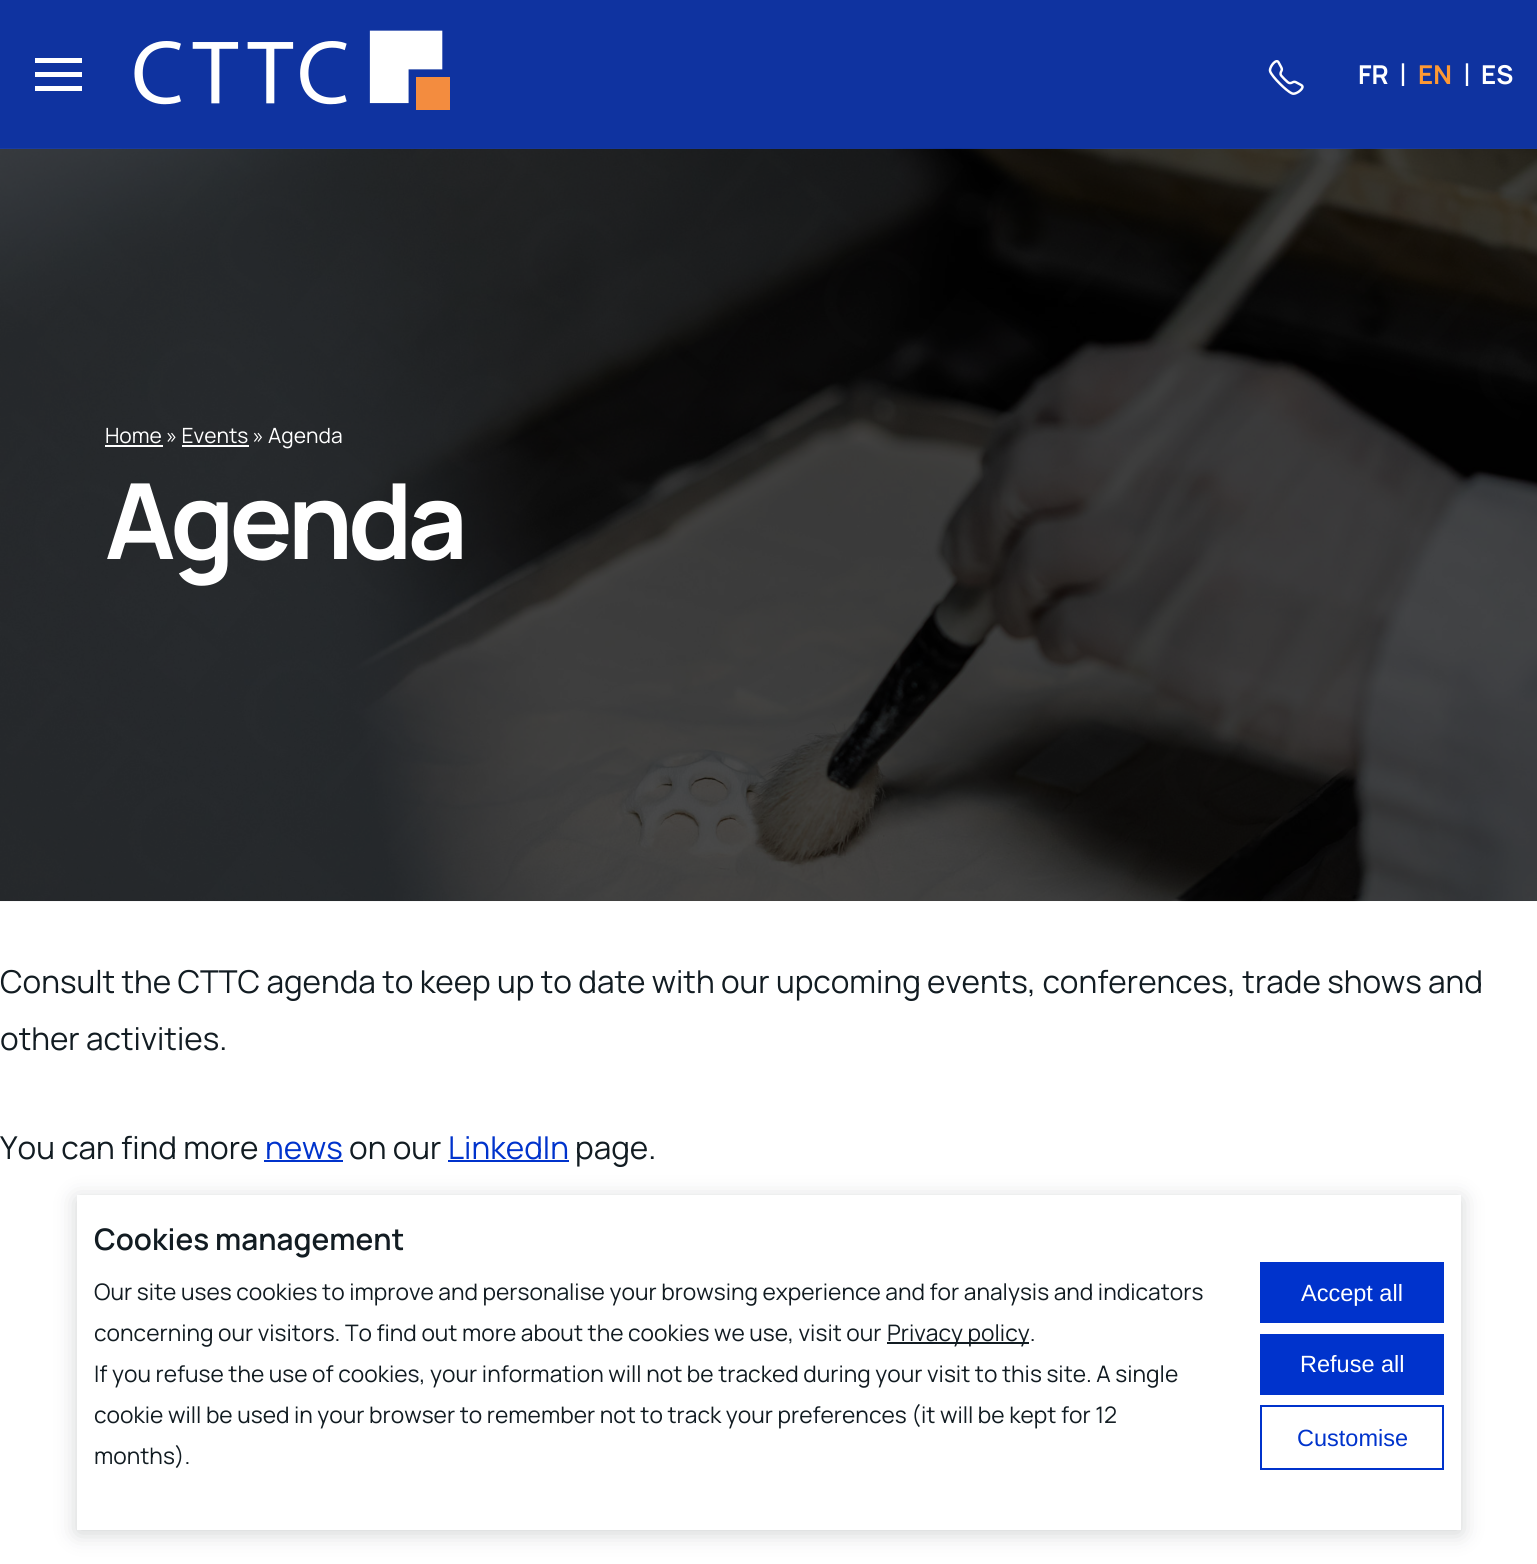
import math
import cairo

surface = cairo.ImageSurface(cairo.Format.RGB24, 1537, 1564)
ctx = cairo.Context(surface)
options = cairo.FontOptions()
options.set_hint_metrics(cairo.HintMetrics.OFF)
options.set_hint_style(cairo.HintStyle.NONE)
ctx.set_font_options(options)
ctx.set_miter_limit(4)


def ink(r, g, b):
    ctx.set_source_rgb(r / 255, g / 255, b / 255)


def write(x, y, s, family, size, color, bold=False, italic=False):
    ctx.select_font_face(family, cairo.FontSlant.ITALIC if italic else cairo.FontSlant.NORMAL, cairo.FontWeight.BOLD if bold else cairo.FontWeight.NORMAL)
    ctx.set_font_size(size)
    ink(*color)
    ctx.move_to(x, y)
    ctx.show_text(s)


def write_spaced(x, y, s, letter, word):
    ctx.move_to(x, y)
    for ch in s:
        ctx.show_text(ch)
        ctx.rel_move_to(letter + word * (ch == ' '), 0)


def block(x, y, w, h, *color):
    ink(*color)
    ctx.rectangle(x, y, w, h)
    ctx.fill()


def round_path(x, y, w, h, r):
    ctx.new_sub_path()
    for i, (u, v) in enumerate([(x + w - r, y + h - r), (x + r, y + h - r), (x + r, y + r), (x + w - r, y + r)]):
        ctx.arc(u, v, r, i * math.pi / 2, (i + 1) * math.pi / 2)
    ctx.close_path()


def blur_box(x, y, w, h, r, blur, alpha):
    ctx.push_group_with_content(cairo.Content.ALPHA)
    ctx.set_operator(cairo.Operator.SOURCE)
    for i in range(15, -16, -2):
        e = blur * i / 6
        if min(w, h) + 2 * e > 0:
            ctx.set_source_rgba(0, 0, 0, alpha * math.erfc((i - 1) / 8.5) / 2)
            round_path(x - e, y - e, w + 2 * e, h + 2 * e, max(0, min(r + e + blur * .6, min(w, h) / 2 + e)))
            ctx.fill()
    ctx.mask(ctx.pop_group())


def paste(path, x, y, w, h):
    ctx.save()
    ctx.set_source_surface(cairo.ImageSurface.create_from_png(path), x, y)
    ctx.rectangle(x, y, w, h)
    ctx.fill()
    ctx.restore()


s1 = dict(family="Manrope", size=26, color=(255, 255, 255), bold=True)
s2 = dict(family="Manrope", size=31.5, color=(255, 255, 255))
s3 = dict(family="Manrope", size=26, color=(255, 153, 51), bold=True)
s4 = dict(family="Manrope", size=21, color=(255, 255, 255))
s5 = dict(family="Manrope", size=31.5, color=(18, 28, 34))
s6 = dict(family="Manrope", size=31.5, color=(0, 51, 204))
s7 = dict(family="Manrope SemiBold", size=29.75, color=(18, 28, 34))
s8 = dict(family="Manrope", size=22.75, color=(18, 28, 34))
s9 = dict(family="Liberation Sans", size=23.5, color=(255, 255, 255))
s10 = dict(family="Liberation Sans", size=23.5, color=(0, 51, 204))

ink(255, 255, 255)
ctx.paint()
block(0, 0, 1537, 149, 15, 51, 160)
block(35, 72, 47, 5, 255, 255, 255)
block(35, 58, 47, 5, 255, 255, 255)
block(35, 86, 47, 5, 255, 255, 255)
paste("pic1.png", 134, 30, 316, 80)
paste("pic2.png", 1268, 60, 36, 35)
write(1358, 84, "FR", **s1)
write(1399, 86, "|", **s2)
write(1418, 84, "EN", **s3)
write(1463, 86, "|", **s2)
write(1481, 84, "ES", **s1)
paste("pic3.png", 0, 148, 1537, 754)
block(105, 445, 58, 2, 255, 255, 255)
write(105, 443, "Home » Events » Agenda", **s4)
block(182, 445, 67, 2, 255, 255, 255)
ctx.select_font_face("Manrope", cairo.FontSlant.NORMAL, cairo.FontWeight.BOLD)
ctx.set_font_size(105)
write_spaced(105, 559, "Agenda", -5.25, 0)
write(0, 993, "Consult the CTTC agenda to keep up to date with our upcoming events, conferences, trade shows and", **s5)
write(0, 1050, "other activities.", **s5)
write(0, 1159, "You can find more", **s5)
write(265, 1159, "news", **s6)
block(264, 1160, 79, 2, 0, 51, 204)
write(349, 1159, "on our", **s5)
write(448, 1159, "LinkedIn", **s6)
block(448, 1160, 121, 2, 0, 51, 204)
write(575, 1159, "page.", **s5)
ink(18, 28, 34)
blur_box(77, 1199, 1384, 334, 0, 11, 0.2)
block(77, 1195, 1384, 335, 255, 255, 255)
write(94, 1250, "Cookies management", **s7)
write(94, 1300, "Our site uses cookies to improve and personalise your browsing experience and for analysis and indicators", **s8)
write(94, 1341, "concerning our visitors. To find out more about the cookies we use, visit our", **s8)
block(887, 1342, 142, 2, 18, 28, 34)
write(887, 1341, "Privacy policy.", **s8)
write(94, 1382, "If you refuse the use of cookies, your information will not be tracked during your visit to this site. A single", **s8)
write(94, 1423, "cookie will be used in your browser to remember not to track your preferences (it will be kept for 12", **s8)
write(94, 1464, "months).", **s8)
block(1260, 1262, 184, 61, 0, 51, 204)
write(1301, 1301, "Accept all", **s9)
block(1260, 1334, 184, 61, 0, 51, 204)
write(1300, 1372, "Refuse all", **s9)
ctx.rectangle(1261, 1406, 182, 63)
ink(0, 51, 204)
ctx.stroke()
write(1297, 1446, "Customise", **s10)
surface.write_to_png("screenshot.png")
